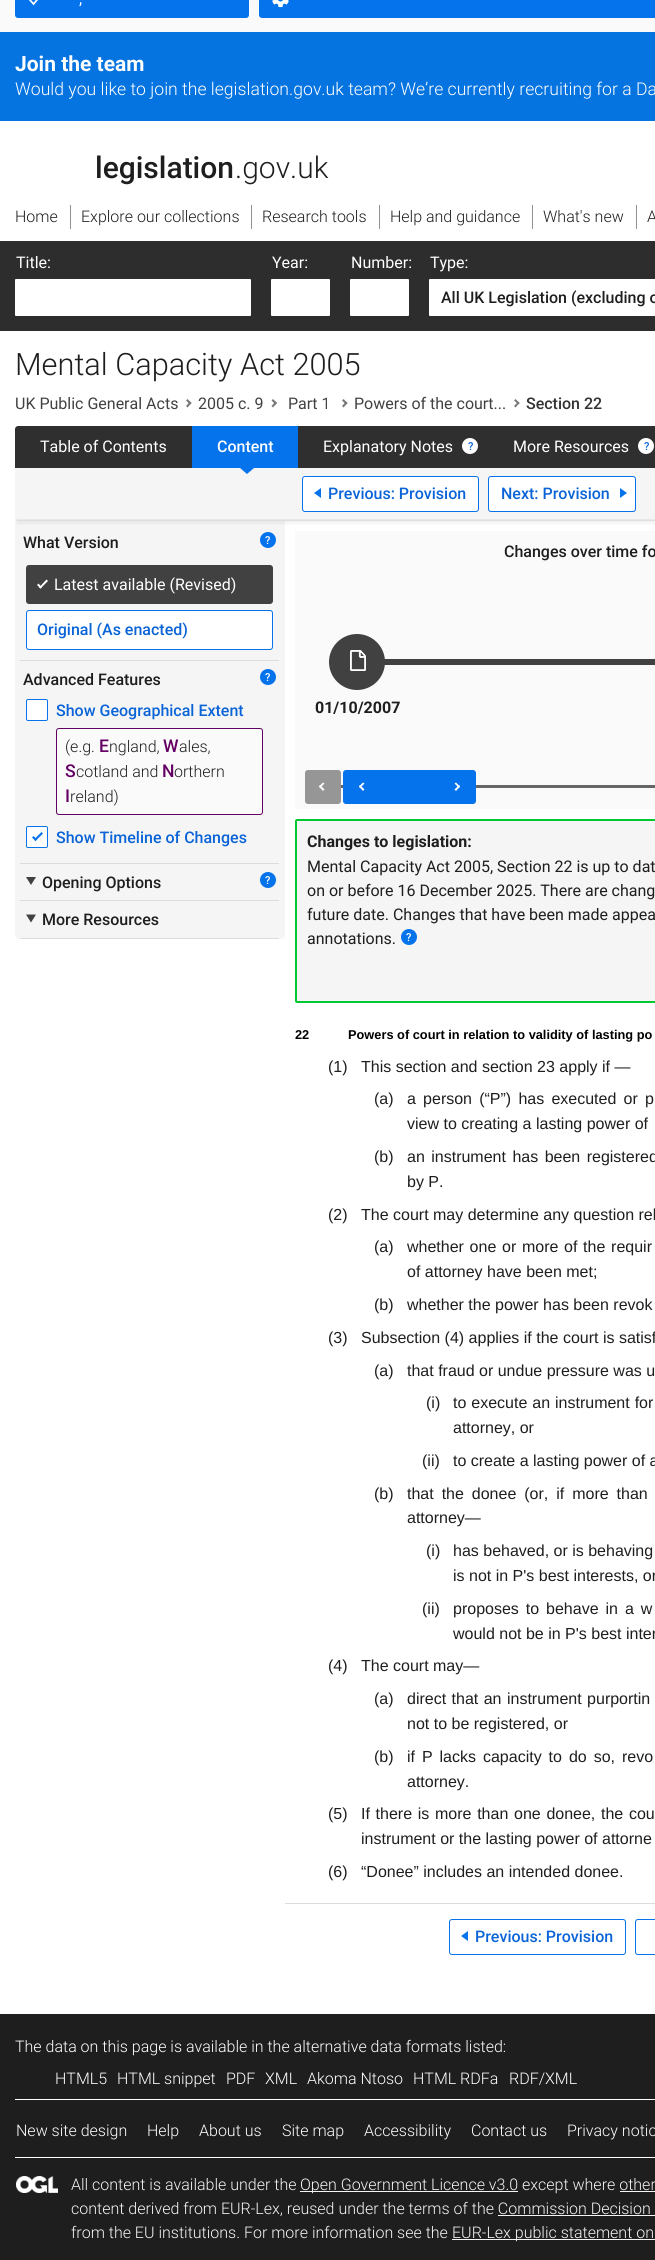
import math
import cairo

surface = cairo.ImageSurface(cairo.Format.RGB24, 655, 2260)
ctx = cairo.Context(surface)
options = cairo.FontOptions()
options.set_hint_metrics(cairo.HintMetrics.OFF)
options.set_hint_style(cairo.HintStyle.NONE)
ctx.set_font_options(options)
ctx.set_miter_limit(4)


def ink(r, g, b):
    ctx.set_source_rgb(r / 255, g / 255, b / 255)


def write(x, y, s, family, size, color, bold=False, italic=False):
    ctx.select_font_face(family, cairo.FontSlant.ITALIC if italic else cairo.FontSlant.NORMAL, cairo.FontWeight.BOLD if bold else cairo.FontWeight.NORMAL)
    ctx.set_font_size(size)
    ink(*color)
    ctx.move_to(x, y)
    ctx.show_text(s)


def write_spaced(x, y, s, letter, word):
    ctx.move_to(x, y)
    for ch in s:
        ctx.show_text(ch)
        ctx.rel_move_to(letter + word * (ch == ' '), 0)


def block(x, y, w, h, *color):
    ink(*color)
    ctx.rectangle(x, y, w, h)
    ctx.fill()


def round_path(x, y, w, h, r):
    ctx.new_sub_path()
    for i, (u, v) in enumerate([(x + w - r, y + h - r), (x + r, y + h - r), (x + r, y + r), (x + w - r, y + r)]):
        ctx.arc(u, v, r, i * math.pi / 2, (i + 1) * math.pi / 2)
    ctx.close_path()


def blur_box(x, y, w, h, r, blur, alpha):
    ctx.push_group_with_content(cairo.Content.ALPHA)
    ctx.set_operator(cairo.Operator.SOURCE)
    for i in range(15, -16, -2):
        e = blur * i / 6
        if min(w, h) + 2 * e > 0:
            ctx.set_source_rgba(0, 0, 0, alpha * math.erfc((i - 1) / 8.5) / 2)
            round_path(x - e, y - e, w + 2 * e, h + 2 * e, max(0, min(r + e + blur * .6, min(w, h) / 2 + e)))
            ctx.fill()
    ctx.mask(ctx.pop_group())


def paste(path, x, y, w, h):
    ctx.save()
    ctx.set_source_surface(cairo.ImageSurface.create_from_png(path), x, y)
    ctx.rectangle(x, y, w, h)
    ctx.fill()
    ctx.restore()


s1 = dict(family="Roboto", size=16, color=(255, 255, 255))
s2 = dict(family="Roboto", size=21, color=(255, 255, 255), bold=True)
s3 = dict(family="Roboto Light", size=17.6, color=(255, 255, 255))
s4 = dict(family="Roboto Medium", size=30, color=(30, 30, 30))
s5 = dict(family="Roboto Light", size=30, color=(30, 30, 30))
s6 = dict(family="Roboto Light", size=16, color=(30, 30, 30))
s7 = dict(family="Roboto Medium", size=16, color=(30, 30, 30))
s8 = dict(family="Roboto Light", size=30.75, color=(30, 30, 30))
s9 = dict(family="Roboto", size=16, color=(65, 65, 65))
s10 = dict(family="Roboto Medium", size=16, color=(51, 51, 51))
s11 = dict(family="Roboto Medium", size=16, color=(255, 255, 255))
s12 = dict(family="Roboto Medium", size=11, color=(10, 100, 215))
s13 = dict(family="Roboto Medium", size=16, color=(10, 100, 215))
s14 = dict(family="Roboto Medium", size=11, color=(255, 255, 255))
s15 = dict(family="Roboto Medium", size=17.6, color=(100, 0, 100))
s16 = dict(family="Roboto", size=16, color=(30, 30, 30), bold=True)
s17 = dict(family="Roboto", size=16, color=(30, 30, 30))
s18 = dict(family="Liberation Sans", size=12.8, color=(0, 0, 0), bold=True)
s19 = dict(family="Liberation Sans", size=16, color=(30, 30, 30))
s20 = dict(family="Roboto Light", size=16, color=(255, 255, 255))
s21 = dict(family="Roboto Light", size=16, color=(245, 245, 245))

ink(255, 255, 255)
ctx.paint()
block(0, 0, 655, 32, 250, 250, 250)
ink(5, 115, 235)
round_path(15, -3, 234, 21, 3)
ctx.fill()
ctx.new_path()
ctx.move_to(42, -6)
ctx.line_to(33.5, 4)
ctx.line_to(30, 0)
ink(255, 255, 255)
ctx.set_line_width(1.7)
ctx.set_line_cap(cairo.LineCap.SQUARE)
ctx.stroke()
write(79, 4, ",", **s1)
ink(5, 115, 235)
round_path(259, -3, 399, 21, 3)
ctx.fill()
paste("pic1.png", 272, 0, 17, 8)
block(0, 32, 655, 89, 5, 116, 224)
write(15, 71, "Join the team", **s2)
write(15, 95, "Would you like to join the legislation.gov.uk team? We’re currently recruiting for a Da", **s3)
write(95, 178, "legislation", **s4)
write(235, 178, ".gov.uk", **s5)
block(0, 241, 655, 90, 45, 45, 45)
write(15, 222, "Home", **s6)
block(70, 205, 1, 24, 145, 145, 145)
write(81, 222, "Explore our collections", **s6)
block(251, 205, 1, 24, 145, 145, 145)
write(262, 222, "Research tools", **s6)
block(379, 205, 1, 24, 145, 145, 145)
write(390, 222, "Help and guidance", **s6)
block(532, 205, 1, 24, 145, 145, 145)
write(543, 222, "What's new", **s6)
block(636, 205, 1, 24, 145, 145, 145)
write(647, 222, "A", **s6)
write(16, 268, "Title:", **s1)
round_path(15, 279, 236, 37, 1)
ctx.fill()
write(272, 268, "Year:", **s1)
round_path(271, 279, 59, 37, 1)
ctx.fill()
write(351, 268, "Number:", **s1)
round_path(350, 279, 59, 37, 1)
ctx.fill()
write(430, 268, "Type:", **s1)
round_path(429, 279, 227, 37, 1)
ctx.fill()
write(441, 303, "All UK Legislation (excluding o", **s7)
write(15, 375, "Mental Capacity Act 2005", **s8)
write(15, 409, "UK Public General Acts", **s9)
ink(120, 120, 120)
ctx.new_path()
ctx.move_to(187.5, 399)
ctx.line_to(191.5, 403)
ctx.line_to(190, 404.5)
ctx.line_to(186, 400.5)
ctx.close_path()
ctx.fill()
ctx.new_path()
ctx.move_to(190, 401.5)
ctx.line_to(191.5, 403)
ctx.line_to(187.5, 407.5)
ctx.line_to(186, 406)
ctx.close_path()
ctx.fill()
write(198, 409, "2005 c. 9", **s9)
ink(120, 120, 120)
ctx.new_path()
ctx.move_to(273, 399)
ctx.line_to(277, 403)
ctx.line_to(275.5, 404.5)
ctx.line_to(271.5, 400.5)
ctx.close_path()
ctx.fill()
ctx.new_path()
ctx.move_to(275.5, 401.5)
ctx.line_to(277, 403)
ctx.line_to(273, 407.5)
ctx.line_to(271.5, 406)
ctx.close_path()
ctx.fill()
write(288, 409, "Part 1", **s9)
ink(120, 120, 120)
ctx.new_path()
ctx.move_to(343.5, 399)
ctx.line_to(347.5, 403)
ctx.line_to(346, 404.5)
ctx.line_to(342, 400.5)
ctx.close_path()
ctx.fill()
ctx.new_path()
ctx.move_to(346, 401.5)
ctx.line_to(347.5, 403)
ctx.line_to(343.5, 407.5)
ctx.line_to(342, 406)
ctx.close_path()
ctx.fill()
write(354, 409, "Powers of the court...", **s9)
ink(120, 120, 120)
ctx.new_path()
ctx.move_to(515.5, 399)
ctx.line_to(519.5, 403)
ctx.line_to(518.5, 404.5)
ctx.line_to(514, 400.5)
ctx.close_path()
ctx.fill()
ctx.new_path()
ctx.move_to(518.5, 401.5)
ctx.line_to(519.5, 403)
ctx.line_to(515.5, 407.5)
ctx.line_to(514, 406)
ctx.close_path()
ctx.fill()
write(526, 409, "Section 22", **s10)
ink(46, 47, 46)
ctx.new_path()
ctx.move_to(18, 426)
ctx.line_to(655, 426)
ctx.curve_to(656.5, 426, 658, 427.5, 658, 429)
ctx.line_to(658, 468)
ctx.line_to(15, 468)
ctx.line_to(15, 429)
ctx.curve_to(15, 427.5, 16.5, 426, 18, 426)
ctx.close_path()
ctx.fill()
write(40, 452, "Table of Contents", **s1)
block(192, 426, 106, 42, 5, 115, 235)
write(217, 452, "Content", **s11)
block(15, 468, 640, 52, 245, 245, 245)
ink(5, 115, 235)
ctx.new_path()
ctx.move_to(240, 468)
ctx.line_to(254, 468)
ctx.line_to(247, 474)
ctx.close_path()
ctx.fill()
write(323, 452, "Explanatory Notes", **s1)
ctx.new_path()
ctx.arc(470, 446, 8, 0, 2 * math.pi)
ctx.fill()
write(468, 450, "?", **s12)
write(513, 452, "More Resources", **s1)
ctx.new_path()
ctx.arc(646, 446, 8, 0, 2 * math.pi)
ctx.fill()
write(644, 450, "?", **s12)
block(15, 520, 640, 1, 235, 235, 235)
ink(255, 255, 255)
round_path(302.5, 476.5, 176, 35, 2.5)
ctx.fill_preserve()
ink(5, 115, 235)
ctx.set_line_width(1)
ctx.set_line_cap(cairo.LineCap.BUTT)
ctx.stroke()
ctx.new_path()
ctx.move_to(321, 488)
ctx.line_to(321, 498)
ctx.line_to(314, 493)
ctx.close_path()
ctx.fill()
write(328, 499, "Previous: Provision", **s13)
ink(255, 255, 255)
round_path(488.5, 476.5, 147, 35, 2.5)
ctx.fill_preserve()
ink(5, 115, 235)
ctx.stroke()
write(501, 499, "Next: Provision", **s13)
ink(5, 115, 235)
ctx.new_path()
ctx.move_to(620, 498)
ctx.line_to(620, 488)
ctx.line_to(627, 493)
ctx.close_path()
ctx.fill()
ink(245, 245, 245)
ctx.new_path()
ctx.move_to(15, 521)
ctx.line_to(285, 521)
ctx.line_to(285, 934)
ctx.curve_to(285, 937, 283, 939, 280, 939)
ctx.line_to(20, 939)
ctx.curve_to(17, 939, 15, 937, 15, 934)
ctx.close_path()
ctx.fill()
block(20, 660, 259, 1, 220, 220, 220)
write(23, 548, "What Version", **s7)
ink(5, 115, 235)
ctx.new_path()
ctx.arc(268, 540, 8, 0, 2 * math.pi)
ctx.fill()
write(265, 544, "?", **s14)
ink(65, 65, 65)
round_path(26, 565, 247, 39, 3)
ctx.fill()
ink(255, 255, 255)
ctx.new_path()
ctx.move_to(46.5, 579.5)
ctx.line_to(48, 581)
ctx.line_to(40.5, 588.5)
ctx.line_to(39, 587.5)
ctx.close_path()
ctx.fill()
ctx.new_path()
ctx.move_to(38.5, 583.5)
ctx.line_to(42, 587.5)
ctx.line_to(40.5, 588.5)
ctx.line_to(37, 585)
ctx.close_path()
ctx.fill()
write(54, 590, "Latest available (Revised)", **s1)
round_path(26.5, 610.5, 246, 39, 2.5)
ctx.fill_preserve()
ink(5, 115, 235)
ctx.stroke()
write(37, 635, "Original (As enacted)", **s13)
block(20, 863, 259, 1, 220, 220, 220)
write(23, 685, "Advanced Features", **s7)
ink(5, 115, 235)
ctx.new_path()
ctx.arc(268, 677, 8, 0, 2 * math.pi)
ctx.fill()
write(265, 681, "?", **s14)
round_path(26.5, 699.5, 21, 21, 1.5)
ctx.fill_preserve()
ink(5, 115, 235)
ctx.stroke()
write(56, 716, "Show Geographical Extent", **s13)
ink(250, 250, 250)
round_path(56.5, 728.5, 206, 86, 2.5)
ctx.fill_preserve()
ink(100, 0, 100)
ctx.stroke()
write(65, 752, "(e.g.", **s6)
write(99, 752, "E", **s15)
write(109, 752, "ngland,", **s6)
write(163, 752, "W", **s15)
write(179, 752, "ales,", **s6)
write(65, 777, "S", **s15)
write(76, 777, "cotland and", **s6)
write(162, 777, "N", **s15)
write(174, 777, "orthern", **s6)
write(65, 802, "I", **s15)
write(70, 802, "reland)", **s6)
ink(255, 255, 255)
round_path(26.5, 826.5, 21, 21, 1.5)
ctx.fill_preserve()
ink(5, 115, 235)
ctx.stroke()
ctx.new_path()
ctx.move_to(41.5, 832)
ctx.line_to(43, 833.5)
ctx.line_to(35.5, 841)
ctx.line_to(34, 839.5)
ctx.close_path()
ctx.fill()
ctx.new_path()
ctx.move_to(33.5, 836)
ctx.line_to(37, 839.5)
ctx.line_to(35.5, 841)
ctx.line_to(32, 837.5)
ctx.close_path()
ctx.fill()
write(56, 843, "Show Timeline of Changes", **s13)
block(20, 900, 259, 1, 220, 220, 220)
ink(65, 65, 65)
ctx.new_path()
ctx.move_to(26, 877)
ctx.line_to(36, 877)
ctx.line_to(31, 885)
ctx.close_path()
ctx.move_to(26, 914.5)
ctx.line_to(36, 914.5)
ctx.line_to(31, 922.5)
ctx.close_path()
ctx.fill()
write(42, 888, "Opening Options", **s7)
ink(5, 115, 235)
ctx.new_path()
ctx.arc(268, 880, 8, 0, 2 * math.pi)
ctx.fill()
write(265, 884, "?", **s14)
block(20, 938, 259, 1, 220, 220, 220)
write(42, 925, "More Resources", **s7)
block(295, 531, 360, 278, 250, 250, 250)
ctx.save()
ctx.rectangle(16, 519, 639, 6)
ctx.clip()
ink(1, 1, 1)
blur_box(17, 517, 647, 6, 0, 3, 0.07)
ctx.restore()
write(504, 557, "Changes over time fo", **s7)
block(384, 659, 271, 6, 65, 65, 65)
ctx.new_path()
ctx.arc(357, 662, 26.5, 0, 2 * math.pi)
ctx.fill_preserve()
ctx.set_line_width(3)
ctx.stroke()
paste("pic2.png", 350, 650, 16, 21)
write(315, 713, "01/10/2007", **s16)
ink(150, 150, 150)
round_path(305, 770, 36, 34, 3)
ctx.fill()
ink(255, 255, 255)
ctx.new_path()
ctx.move_to(324.5, 789.5)
ctx.line_to(323, 791)
ctx.line_to(319, 786.5)
ctx.line_to(320, 785)
ctx.close_path()
ctx.fill()
ctx.new_path()
ctx.move_to(324.5, 783.5)
ctx.line_to(320, 788)
ctx.line_to(319, 786.5)
ctx.line_to(323, 782.5)
ctx.close_path()
ctx.fill()
block(341, 785, 314, 3, 102, 102, 102)
ink(5, 115, 235)
round_path(343, 770, 133, 34, 3)
ctx.fill()
ink(255, 255, 255)
ctx.new_path()
ctx.move_to(364.5, 789.5)
ctx.line_to(363, 791)
ctx.line_to(359, 786.5)
ctx.line_to(360, 785)
ctx.close_path()
ctx.fill()
ctx.new_path()
ctx.move_to(364.5, 783.5)
ctx.line_to(360, 788)
ctx.line_to(359, 786.5)
ctx.line_to(363, 782.5)
ctx.close_path()
ctx.fill()
ctx.new_path()
ctx.move_to(454.5, 783.5)
ctx.line_to(456, 782.5)
ctx.line_to(460, 786.5)
ctx.line_to(459, 788)
ctx.close_path()
ctx.fill()
ctx.new_path()
ctx.move_to(454.5, 789.5)
ctx.line_to(459, 785)
ctx.line_to(460, 786.5)
ctx.line_to(456, 791)
ctx.close_path()
ctx.fill()
ink(245, 245, 245)
round_path(296, 820, 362, 182, 1)
ctx.fill_preserve()
ink(0, 200, 50)
ctx.set_line_width(2)
ctx.stroke()
write(307, 847, "Changes to legislation:", **s16)
write(307, 872, "Mental Capacity Act 2005, Section 22 is up to dat", **s17)
write(307, 896, "on or before 16 December 2025. There are chang", **s17)
write(307, 920, "future date. Changes that have been made appea", **s17)
write(307, 944, "annotations.", **s17)
ink(5, 115, 235)
ctx.new_path()
ctx.arc(409, 937, 8, 0, 2 * math.pi)
ctx.fill()
write(406, 941, "?", **s14)
write(295, 1039, "22", **s18)
write(348, 1039, "Powers of court in relation to validity of lasting po", **s18)
write(328, 1072, "(1)", **s19)
write(361, 1072, "This section and section 23 apply if —", **s19)
write(374, 1104, "(a)", **s19)
write_spaced(407, 1104, "a person (“P”) has executed or p", 0, 2.75)
write(407, 1129, "view to creating a lasting power of", **s19)
write(374, 1162, "(b)", **s19)
write_spaced(407, 1162, "an instrument has been registered", 0, 2)
write(407, 1187, "by P.", **s19)
write(328, 1220, "(2)", **s19)
write(361, 1220, "The court may determine any question rel", **s19)
write(374, 1252, "(a)", **s19)
write_spaced(407, 1252, "whether one or more of the requir", 0, 1.25)
write(407, 1277, "of attorney have been met;", **s19)
write(374, 1310, "(b)", **s19)
write(407, 1310, "whether the power has been revok", **s19)
write(328, 1343, "(3)", **s19)
write(361, 1343, "Subsection (4) applies if the court is satisf", **s19)
write(374, 1376, "(a)", **s19)
write(407, 1376, "that fraud or undue pressure was u", **s19)
write(426, 1408, "(i)", **s19)
write_spaced(453, 1408, "to execute an instrument for", 0, 0.5)
write(453, 1433, "attorney, or", **s19)
write(422, 1466, "(ii)", **s19)
write(453, 1466, "to create a lasting power of a", **s19)
write(374, 1499, "(b)", **s19)
write_spaced(407, 1499, "that the donee (or, if more than", 0, 3.5)
write(407, 1523, "attorney—", **s19)
write(426, 1556, "(i)", **s19)
write(453, 1556, "has behaved, or is behaving", **s19)
write(453, 1581, "is not in P's best interests, or", **s19)
write(422, 1614, "(ii)", **s19)
write_spaced(453, 1614, "proposes to behave in a w", 0, 2.5)
write(453, 1639, "would not be in P's best inter", **s19)
write(328, 1671, "(4)", **s19)
write(361, 1671, "The court may—", **s19)
write(374, 1704, "(a)", **s19)
write_spaced(407, 1704, "direct that an instrument purportin", 0, 1)
write(407, 1729, "not to be registered, or", **s19)
write(374, 1762, "(b)", **s19)
write_spaced(407, 1762, "if P lacks capacity to do so, revo", 0, 2.5)
write(407, 1787, "attorney.", **s19)
write(328, 1819, "(5)", **s19)
write_spaced(361, 1819, "If there is more than one donee, the cou", 0, 1.25)
write(361, 1844, "instrument or the lasting power of attorne", **s19)
write(328, 1877, "(6)", **s19)
write(361, 1877, "“Donee” includes an intended donee.", **s19)
block(285, 1903, 370, 1, 220, 220, 220)
round_path(449.5, 1919.5, 176, 35, 2.5)
ink(5, 115, 235)
ctx.set_line_width(1)
ctx.stroke()
ctx.new_path()
ctx.move_to(468, 1931)
ctx.line_to(468, 1941)
ctx.line_to(461, 1936)
ctx.close_path()
ctx.fill()
write(475, 1942, "Previous: Provision", **s13)
round_path(635.5, 1919.5, 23, 35, 2.5)
ink(5, 115, 235)
ctx.stroke()
block(0, 2014, 655, 246, 30, 30, 30)
block(15, 2099, 640, 1, 255, 255, 255)
write(15, 2052, "The data on this page is available in the alternative data formats listed:", **s20)
write(55, 2084, "HTML5", **s20)
write(117, 2084, "HTML snippet", **s20)
write(226, 2084, "PDF", **s20)
write(265, 2084, "XML", **s20)
write(307, 2084, "Akoma Ntoso", **s20)
write(413, 2084, "HTML RDFa", **s20)
write(509, 2084, "RDF/XML", **s20)
write(16, 2136, "New site design", **s20)
write(147, 2136, "Help", **s20)
write(199, 2136, "About us", **s20)
write(282, 2136, "Site map", **s20)
write(364, 2136, "Accessibility", **s20)
write(471, 2136, "Contact us", **s20)
write(567, 2136, "Privacy notic", **s20)
block(15, 2157, 640, 1, 255, 255, 255)
paste("pic3.png", 16, 2176, 42, 17)
write(71, 2190, "All content is available under the", **s21)
block(300, 2191, 218, 1, 245, 245, 245)
write(300, 2190, "Open Government Licence v3.0 except where other", **s21)
block(620, 2191, 35, 1, 245, 245, 245)
write(71, 2214, "content derived from EUR-Lex, reused under the terms of the Commission Decision", **s21)
block(498, 2215, 157, 1, 245, 245, 245)
write(71, 2238, "from the EU institutions. For more information see the", **s21)
block(452, 2239, 203, 1, 245, 245, 245)
write(452, 2238, "EUR-Lex public statement on", **s21)
surface.write_to_png("screenshot.png")
